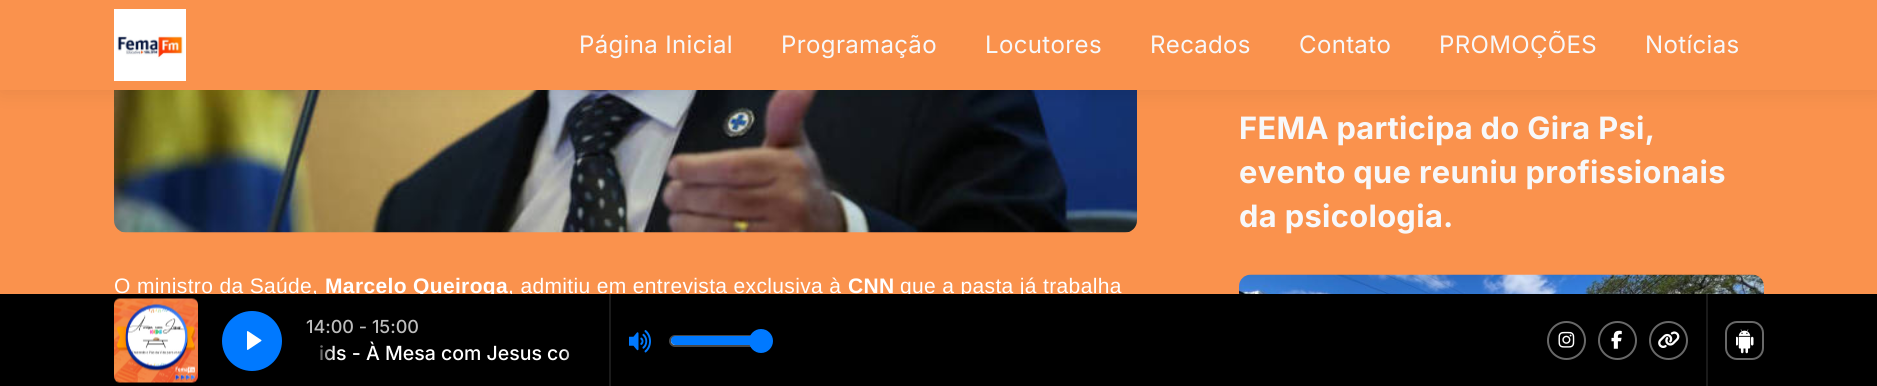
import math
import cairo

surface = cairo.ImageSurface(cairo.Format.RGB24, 1877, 386)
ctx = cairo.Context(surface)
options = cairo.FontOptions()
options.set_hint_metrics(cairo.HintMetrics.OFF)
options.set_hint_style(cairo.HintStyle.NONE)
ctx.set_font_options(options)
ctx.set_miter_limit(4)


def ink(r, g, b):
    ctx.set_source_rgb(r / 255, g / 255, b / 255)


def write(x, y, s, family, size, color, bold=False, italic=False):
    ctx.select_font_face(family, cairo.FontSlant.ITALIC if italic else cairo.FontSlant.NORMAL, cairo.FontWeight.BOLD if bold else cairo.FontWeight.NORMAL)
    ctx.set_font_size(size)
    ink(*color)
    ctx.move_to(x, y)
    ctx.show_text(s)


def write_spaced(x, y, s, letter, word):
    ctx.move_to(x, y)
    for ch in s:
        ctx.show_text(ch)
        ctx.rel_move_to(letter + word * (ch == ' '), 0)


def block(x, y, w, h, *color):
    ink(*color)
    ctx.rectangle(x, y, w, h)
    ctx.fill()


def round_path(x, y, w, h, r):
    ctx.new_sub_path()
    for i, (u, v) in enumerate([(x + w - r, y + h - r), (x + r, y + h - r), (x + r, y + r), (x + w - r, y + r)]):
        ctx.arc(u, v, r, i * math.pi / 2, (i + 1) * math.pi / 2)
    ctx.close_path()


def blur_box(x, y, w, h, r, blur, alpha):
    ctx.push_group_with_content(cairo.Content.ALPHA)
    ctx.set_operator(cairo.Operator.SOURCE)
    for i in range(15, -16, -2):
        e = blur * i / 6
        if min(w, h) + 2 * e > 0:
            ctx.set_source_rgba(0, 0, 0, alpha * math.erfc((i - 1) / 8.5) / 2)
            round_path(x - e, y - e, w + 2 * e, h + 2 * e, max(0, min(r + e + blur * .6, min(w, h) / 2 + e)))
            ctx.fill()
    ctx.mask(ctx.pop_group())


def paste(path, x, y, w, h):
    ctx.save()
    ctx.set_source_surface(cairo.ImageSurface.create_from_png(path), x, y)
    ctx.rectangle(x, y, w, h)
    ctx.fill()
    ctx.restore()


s1 = dict(family="Inter Medium", size=18, color=(189, 189, 189))
s2 = dict(family="Inter Medium", size=19.5, color=(255, 255, 255))

ink(250, 146, 77)
ctx.paint()
paste("pic3.png", 114, 90, 1023, 143)
ink(0, 0, 0)
blur_box(0, 3, 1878, 90, 0, 10.5, 0.07)
block(0, 0, 1877, 90, 250, 146, 77)
paste("pic1.png", 114, 9, 72, 72)
ctx.select_font_face("Inter")
ctx.set_font_size(24)
ink(247, 248, 250)
write_spaced(579, 53, "Página Inicial", 0.35, 0)
write_spaced(781, 53, "Programação", 0.35, 0)
write_spaced(985, 53, "Locutores", 0.35, 0)
write_spaced(1150, 53, "Recados", 0.35, 0)
write_spaced(1299, 53, "Contato", 0.35, 0)
write_spaced(1439, 53, "PROMOÇÕES", 0.35, 0)
write_spaced(1645, 53, "Notícias", 0.35, 0)
ctx.select_font_face("Inter", cairo.FontSlant.NORMAL, cairo.FontWeight.BOLD)
ctx.set_font_size(30.8)
write_spaced(1239, 139, "FEMA participa do Gira Psi,", 0.35, 0)
write_spaced(1239, 183, "evento que reuniu profissionais", 0.35, 0)
write_spaced(1239, 227, "da psicologia.", 0.35, 0)
paste("pic2.png", 1239, 274, 525, 20)
ctx.select_font_face("Liberation Sans")
ctx.set_font_size(21)
ink(255, 255, 255)
write_spaced(114, 293, "O ministro da Saúde,", 0.35, 0)
ctx.select_font_face("Liberation Sans", cairo.FontSlant.NORMAL, cairo.FontWeight.BOLD)
write_spaced(325, 293, "Marcelo Queiroga", 0.35, 0)
ctx.select_font_face("Liberation Sans")
write_spaced(508, 293, ", admitiu em entrevista exclusiva à", 0.35, 0)
ctx.select_font_face("Liberation Sans", cairo.FontSlant.NORMAL, cairo.FontWeight.BOLD)
write_spaced(848, 293, "CNN", 0.35, 0)
ctx.select_font_face("Liberation Sans")
write_spaced(900, 293, "que a pasta já trabalha", 0.35, 0)
block(0, 294, 1877, 92, 0, 0, 0)
block(609, 294, 2, 92, 26, 26, 26)
paste("pic4.png", 114, 298, 84, 85)
ink(0, 121, 255)
ctx.arc(252, 341, 30, 0, 2 * math.pi)
ctx.fill()
paste("pic5.png", 247, 331, 15, 19)
write(306, 333, "14:00 - 15:00", **s1)
write(319, 360, "ids - À Mesa com Jesus co", **s2)
gradient = cairo.LinearGradient(306, 353, 335, 353)
gradient.add_color_stop_rgba(0.2, 0, 0, 0, 1)
gradient.add_color_stop_rgba(1, 0, 0, 0, 0)
ctx.set_source(gradient)
ctx.rectangle(320, 345, 15, 16)
ctx.fill()
gradient = cairo.LinearGradient(591, 353, 563, 353)
gradient.add_color_stop_rgba(0.2, 0, 0, 0, 1)
gradient.add_color_stop_rgba(1, 0, 0, 0, 0)
ctx.set_source(gradient)
ctx.rectangle(563, 349, 7, 12)
ctx.fill()
paste("pic6.png", 629, 330, 22, 23)
ink(204, 228, 255)
round_path(670, 336, 91, 10, 5)
ctx.fill_preserve()
ink(71, 71, 71)
ctx.stroke()
ink(0, 121, 255)
round_path(671, 336, 90, 9, 4.5)
ctx.fill()
ctx.arc(761, 341, 11, 0, 2 * math.pi)
ctx.fill_preserve()
ctx.stroke()
ctx.arc(1566.5, 340.5, 18.5, 0, 2 * math.pi)
ink(104, 104, 104)
ctx.stroke()
paste("pic7.png", 1558, 331, 17, 17)
ctx.arc(1617.5, 340.5, 18.5, 0, 2 * math.pi)
ctx.stroke()
paste("pic8.png", 1611, 330, 11, 19)
ctx.arc(1668.5, 340.5, 18.5, 0, 2 * math.pi)
ctx.stroke()
paste("pic9.png", 1658, 331, 22, 17)
block(1706, 294, 2, 92, 26, 26, 26)
round_path(1726, 322, 37, 37, 11)
ink(104, 104, 104)
ctx.stroke()
paste("pic10.png", 1736, 329, 18, 25)
surface.write_to_png("screenshot.png")
